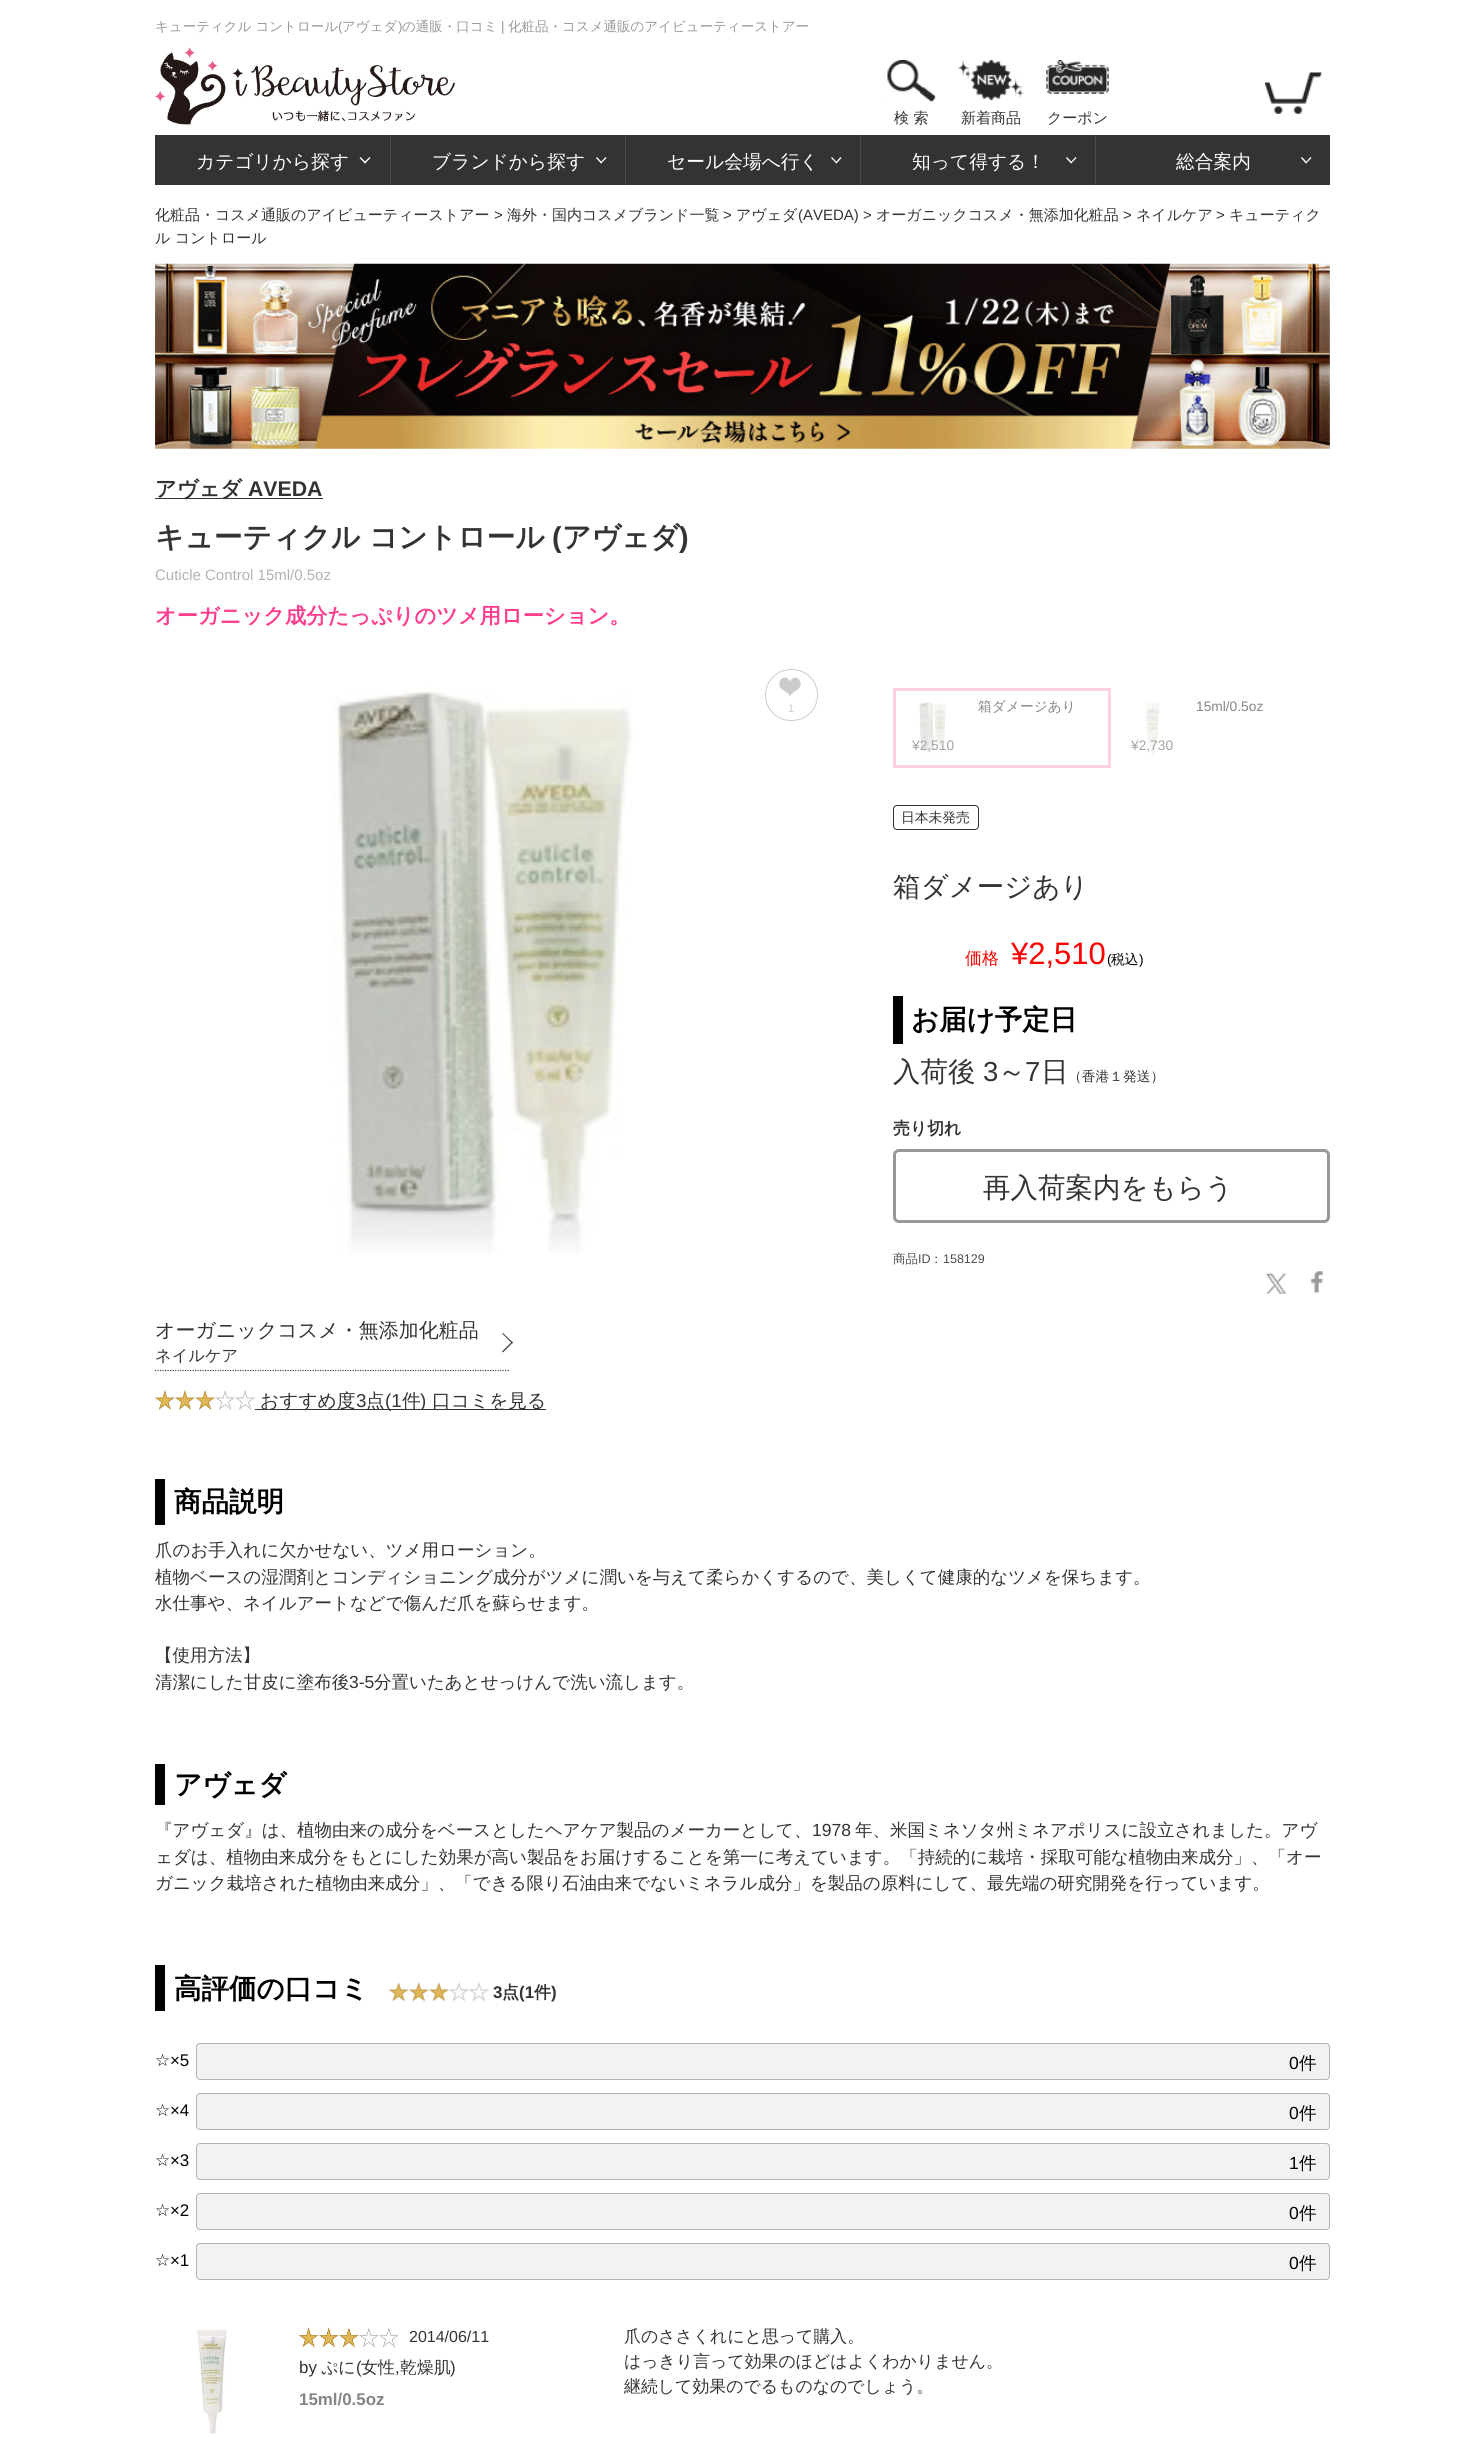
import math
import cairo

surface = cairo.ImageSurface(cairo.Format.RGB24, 1484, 2437)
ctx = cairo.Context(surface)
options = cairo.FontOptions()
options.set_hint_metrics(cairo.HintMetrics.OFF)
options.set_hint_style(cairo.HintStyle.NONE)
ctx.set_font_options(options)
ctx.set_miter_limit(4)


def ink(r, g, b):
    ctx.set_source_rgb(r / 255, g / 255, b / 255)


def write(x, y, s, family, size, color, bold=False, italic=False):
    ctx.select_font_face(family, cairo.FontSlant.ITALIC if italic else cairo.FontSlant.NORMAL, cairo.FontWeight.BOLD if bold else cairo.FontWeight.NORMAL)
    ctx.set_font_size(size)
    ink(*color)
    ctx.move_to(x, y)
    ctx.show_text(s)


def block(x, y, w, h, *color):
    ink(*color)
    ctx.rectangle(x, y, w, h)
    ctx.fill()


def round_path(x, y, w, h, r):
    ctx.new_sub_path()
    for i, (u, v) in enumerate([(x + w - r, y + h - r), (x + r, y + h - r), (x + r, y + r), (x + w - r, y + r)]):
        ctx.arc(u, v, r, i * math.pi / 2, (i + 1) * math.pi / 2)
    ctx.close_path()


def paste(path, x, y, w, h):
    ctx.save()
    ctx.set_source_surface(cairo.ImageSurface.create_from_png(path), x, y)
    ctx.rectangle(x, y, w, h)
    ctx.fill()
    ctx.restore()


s1 = dict(family="WenQuanYi Zen Hei Medium", size=13.5, color=(153, 153, 153))
s2 = dict(family="Liberation Sans", size=13.5, color=(153, 153, 153))
s3 = dict(family="WenQuanYi Zen Hei Medium", size=15, color=(51, 51, 51))
s4 = dict(family="WenQuanYi Zen Hei Medium", size=18.75, color=(255, 255, 255))
s5 = dict(family="Liberation Sans", size=15, color=(51, 51, 51))
s6 = dict(family="WenQuanYi Zen Hei", size=21.25, color=(51, 51, 51), bold=True)
s7 = dict(family="Liberation Sans", size=21.25, color=(51, 51, 51), bold=True)
s8 = dict(family="WenQuanYi Zen Hei", size=28.75, color=(51, 51, 51), bold=True)
s9 = dict(family="Liberation Sans", size=28.75, color=(51, 51, 51), bold=True)
s10 = dict(family="Liberation Sans", size=15, color=(178, 178, 178))
s11 = dict(family="WenQuanYi Zen Hei", size=21.25, color=(255, 61, 143), bold=True)
s12 = dict(family="Liberation Sans", size=11, color=(204, 204, 204))
s13 = dict(family="WenQuanYi Zen Hei Medium", size=20, color=(51, 51, 51))
s14 = dict(family="WenQuanYi Zen Hei Medium", size=16.25, color=(51, 51, 51))
s15 = dict(family="WenQuanYi Zen Hei Medium", size=18.75, color=(51, 51, 51))
s16 = dict(family="Liberation Sans", size=18.75, color=(51, 51, 51))
s17 = dict(family="WenQuanYi Zen Hei Medium", size=13.75, color=(133, 133, 133))
s18 = dict(family="Liberation Sans", size=13.75, color=(163, 163, 163))
s19 = dict(family="Liberation Sans", size=13.75, color=(133, 133, 133))
s20 = dict(family="WenQuanYi Zen Hei Medium", size=13.75, color=(51, 51, 51))
s21 = dict(family="WenQuanYi Zen Hei Medium", size=27.5, color=(51, 51, 51))
s22 = dict(family="WenQuanYi Zen Hei Medium", size=16.9, color=(255, 0, 0))
s23 = dict(family="Liberation Sans", size=31, color=(255, 0, 0))
s24 = dict(family="Liberation Sans", size=13.75, color=(0, 0, 0))
s25 = dict(family="WenQuanYi Zen Hei Medium", size=13.75, color=(0, 0, 0))
s26 = dict(family="WenQuanYi Zen Hei", size=27.5, color=(0, 0, 0), bold=True)
s27 = dict(family="Liberation Sans", size=27.5, color=(51, 51, 51))
s28 = dict(family="WenQuanYi Zen Hei", size=16.9, color=(51, 51, 51), bold=True)
s29 = dict(family="WenQuanYi Zen Hei Medium", size=12.5, color=(77, 77, 77))
s30 = dict(family="Liberation Sans", size=12.5, color=(77, 77, 77))
s31 = dict(family="WenQuanYi Zen Hei Medium", size=17.5, color=(51, 51, 51))
s32 = dict(family="Liberation Sans", size=17.5, color=(51, 51, 51))
s33 = dict(family="Liberation Sans", size=16.9, color=(51, 51, 51), bold=True)
s34 = dict(family="DejaVu Sans", size=16.9, color=(0, 0, 0))
s35 = dict(family="Liberation Sans", size=16.9, color=(0, 0, 0))
s36 = dict(family="Liberation Sans", size=17.5, color=(0, 0, 0))
s37 = dict(family="WenQuanYi Zen Hei Medium", size=17.5, color=(0, 0, 0))
s38 = dict(family="Liberation Sans", size=16, color=(51, 51, 51))
s39 = dict(family="Liberation Sans", size=16.9, color=(51, 51, 51))
s40 = dict(family="WenQuanYi Zen Hei Medium", size=16.9, color=(51, 51, 51))
s41 = dict(family="Liberation Sans", size=16.9, color=(133, 133, 133), bold=True)

ink(255, 255, 255)
ctx.paint()
write(155, 31, "キューティクル コントロール", **s1)
write(338, 31, "(", **s2)
write(342, 31, "アヴェダ", **s1)
write(398, 31, ")", **s2)
write(402, 31, "の通販・口コミ", **s1)
write(501, 31, "|", **s2)
write(508, 31, "化粧品・コスメ通販のアイビューティーストアー", **s1)
paste("pic1.png", 155, 47, 300, 78)
paste("pic2.png", 1265, 72, 57, 42)
paste("pic3.png", 882, 60, 54, 43)
write(894, 123, "検 索", **s3)
paste("pic4.png", 957, 60, 67, 41)
write(961, 123, "新着商品", **s3)
paste("pic5.png", 1046, 60, 63, 34)
write(1047, 123, "クーポン", **s3)
block(155, 135, 1175, 50, 51, 51, 51)
write(196, 168, "カテゴリから探す", **s4)
ctx.new_path()
ctx.move_to(370.5, 158)
ctx.line_to(365, 163.5)
ctx.line_to(364, 162.5)
ctx.line_to(369.5, 157)
ctx.close_path()
ctx.fill()
ctx.new_path()
ctx.move_to(366, 162.5)
ctx.line_to(365, 163.5)
ctx.line_to(359.5, 158)
ctx.line_to(360.5, 157)
ctx.close_path()
ctx.fill()
block(390, 135, 1, 50, 76, 76, 76)
write(432, 168, "ブランドから探す", **s4)
ctx.new_path()
ctx.move_to(606.5, 158)
ctx.line_to(601, 163.5)
ctx.line_to(600.5, 162.5)
ctx.line_to(605.5, 157)
ctx.close_path()
ctx.fill()
ctx.new_path()
ctx.move_to(602, 162.5)
ctx.line_to(601, 163.5)
ctx.line_to(596, 158)
ctx.line_to(597, 157)
ctx.close_path()
ctx.fill()
block(625, 135, 1, 50, 76, 76, 76)
write(667, 168, "セール会場へ行く", **s4)
ctx.new_path()
ctx.move_to(841.5, 158)
ctx.line_to(836.5, 163.5)
ctx.line_to(835.5, 162.5)
ctx.line_to(840.5, 157)
ctx.close_path()
ctx.fill()
ctx.new_path()
ctx.move_to(837, 162.5)
ctx.line_to(836.5, 163.5)
ctx.line_to(831, 158)
ctx.line_to(832, 157)
ctx.close_path()
ctx.fill()
block(860, 135, 1, 50, 76, 76, 76)
write(912, 168, "知って得する！", **s4)
ctx.new_path()
ctx.move_to(1076.5, 158)
ctx.line_to(1071, 163.5)
ctx.line_to(1070.5, 162.5)
ctx.line_to(1075.5, 157)
ctx.close_path()
ctx.fill()
ctx.new_path()
ctx.move_to(1072, 162.5)
ctx.line_to(1071, 163.5)
ctx.line_to(1066, 158)
ctx.line_to(1067, 157)
ctx.close_path()
ctx.fill()
block(1095, 135, 1, 50, 76, 76, 76)
write(1176, 168, "総合案内", **s4)
ctx.new_path()
ctx.move_to(1311.5, 158)
ctx.line_to(1306, 163.5)
ctx.line_to(1305.5, 162.5)
ctx.line_to(1310.5, 157)
ctx.close_path()
ctx.fill()
ctx.new_path()
ctx.move_to(1307, 162.5)
ctx.line_to(1306, 163.5)
ctx.line_to(1301, 158)
ctx.line_to(1302, 157)
ctx.close_path()
ctx.fill()
write(155, 220, "化粧品・コスメ通販のアイビューティーストアー", **s3)
write(494, 220, ">", **s5)
write(507, 220, "海外・国内コスメブランド一覧", **s3)
write(723, 220, ">", **s5)
write(736, 220, "アヴェダ", **s3)
write(798, 220, "(AVEDA) >", **s5)
write(876, 220, "オーガニックコスメ・無添加化粧品", **s3)
write(1123, 220, ">", **s5)
write(1136, 220, "ネイルケア", **s3)
write(1216, 220, ">", **s5)
write(1229, 220, "キューティク", **s3)
write(155, 243, "ル コントロール", **s3)
paste("pic6.png", 155, 263, 1175, 186)
block(155, 498, 168, 1, 51, 51, 51)
write(155, 496, "アヴェダ", **s6)
write(248, 496, "AVEDA", **s7)
write(155, 547, "キューティクル コントロール", **s8)
write(552, 547, "(", **s9)
write(562, 547, "アヴェダ", **s8)
write(679, 547, ")", **s9)
write(155, 580, "Cuticle Control 15ml/0.5oz", **s10)
write(155, 623, "オーガニック成分たっぷりのツメ用ローション。", **s11)
paste("pic7.png", 331, 687, 302, 567)
round_path(765.5, 669.5, 52, 51, 25.5)
ink(204, 204, 204)
ctx.set_line_width(1)
ctx.stroke()
paste("pic8.png", 779, 677, 22, 19)
write(788, 712, "1", **s12)
ctx.new_path()
ctx.move_to(155, 1370.5)
ctx.line_to(510, 1370.5)
ink(77, 77, 77)
ctx.set_line_width(1.2)
ctx.set_dash([1.25, 1.25])
ctx.stroke()
write(155, 1337, "オーガニックコスメ・無添加化粧品", **s13)
write(155, 1361, "ネイルケア", **s14)
ink(77, 77, 77)
ctx.new_path()
ctx.move_to(503, 1333)
ctx.line_to(513, 1342.5)
ctx.line_to(512, 1343.5)
ctx.line_to(502, 1333.5)
ctx.close_path()
ctx.fill()
ctx.new_path()
ctx.move_to(512, 1341.5)
ctx.line_to(513, 1342.5)
ctx.line_to(503, 1352.5)
ctx.line_to(502, 1351.5)
ctx.close_path()
ctx.fill()
paste("pic9.png", 155, 1390, 100, 20)
block(255, 1409, 291, 1, 51, 51, 51)
write(260, 1407, "おすすめ度", **s15)
write(356, 1407, "3", **s16)
write(366, 1407, "点", **s15)
write(385, 1407, "(1", **s16)
write(402, 1407, "件", **s15)
ctx.save()
ctx.rectangle(155, 669, 663, 741)
ctx.clip()
write(420, 1407, ")", **s16)
ctx.restore()
write(432, 1407, "口コミを見る", **s15)
ctx.rectangle(894.5, 689.5, 215, 77)
ink(255, 208, 227)
ctx.set_line_width(3)
ctx.set_dash([])
ctx.stroke()
write(978, 711, "箱ダメージあり", **s17)
paste("pic10.png", 919, 702, 27, 51)
write(912, 750, "¥2,510", **s18)
write(1196, 711, "15ml/0.5oz", **s19)
paste("pic11.png", 1145, 703, 15, 52)
write(1131, 750, "¥2,730", **s18)
round_path(893.5, 805.5, 85, 24, 3.5)
ink(51, 51, 51)
ctx.set_line_width(1)
ctx.stroke()
write(901, 822, "日本未発売", **s20)
write(893, 896, "箱ダメージあり", **s21)
write(965, 964, "価格", **s22)
write(1011, 964, "¥2,510", **s23)
write(1107, 964, "(", **s24)
write(1111, 964, "税込", **s25)
write(1139, 964, ")", **s24)
block(893, 996, 10, 48, 0, 0, 0)
write(911, 1029, "お届け予定日", **s26)
write(893, 1081, "入荷後", **s21)
write(983, 1081, "3", **s27)
write(998, 1081, "～", **s21)
write(1025, 1081, "7", **s27)
write(1041, 1081, "日", **s21)
write(1068, 1081, "（香港１発送）", **s20)
write(893, 1134, "売り切れ", **s28)
round_path(894.5, 1150.5, 434, 71, 4.5)
ink(152, 152, 152)
ctx.set_line_width(3)
ctx.stroke()
write(983, 1197, "再入荷案内をもらう", **s21)
write(893, 1263, "商品", **s29)
write(918, 1263, "ID", **s30)
write(930, 1263, "：", **s29)
write(943, 1263, "158129", **s30)
paste("pic12.png", 1266, 1273, 21, 21)
paste("pic13.png", 1311, 1271, 12, 22)
block(155, 1479, 10, 46, 0, 0, 0)
write(174, 1511, "商品説明", **s26)
write(155, 1556, "爪のお手入れに欠かせない、ツメ用ローション。", **s31)
write(155, 1583, "植物ベースの湿潤剤とコンディショニング成分がツメに潤いを与えて柔らかくするので、美しくて健康的なツメを保ちます。", **s31)
write(155, 1609, "水仕事や、ネイルアートなどで傷んだ爪を蘇らせます。", **s31)
write(155, 1661, "【使用方法】", **s31)
write(155, 1688, "清潔にした甘皮に塗布後", **s31)
write(349, 1688, "3-5", **s32)
write(374, 1688, "分置いたあとせっけんで洗い流します。", **s31)
block(155, 1764, 10, 41, 0, 0, 0)
write(174, 1794, "アヴェダ", **s26)
write(155, 1836, "『アヴェダ』は、植物由来の成分をベースとしたヘアケア製品のメーカーとして、", **s31)
write(812, 1836, "1978", **s32)
write(855, 1836, "年、米国ミネソタ州ミネアポリスに設立されました。アヴ", **s31)
write(155, 1863, "ェダは、植物由来成分をもとにした効果が高い製品をお届けすることを第一に考えています。「持続的に栽培・採取可能な植物由来成分」、「オー", **s31)
write(155, 1889, "ガニック栽培された植物由来成分」、「できる限り石油由来でないミネラル成分」を製品の原料にして、最先端の研究開発を行っています。", **s31)
block(155, 1965, 10, 46, 0, 0, 0)
write(174, 1998, "高評価の口コミ", **s26)
paste("pic14.png", 388, 1982, 101, 20)
write(493, 1998, "3", **s33)
write(502, 1998, "点", **s28)
write(519, 1998, "(1", **s33)
write(534, 1998, "件", **s28)
write(551, 1998, ")", **s33)
write(155, 2066, "☆", **s34)
write(170, 2066, "×5", **s35)
ink(242, 242, 242)
round_path(196.5, 2043.5, 1133, 36, 3.5)
ctx.fill_preserve()
ink(179, 179, 179)
ctx.set_line_width(1)
ctx.stroke()
write(1289, 2069, "0", **s36)
write(1299, 2069, "件", **s37)
write(155, 2116, "☆", **s34)
write(170, 2116, "×4", **s35)
ink(242, 242, 242)
round_path(196.5, 2093.5, 1133, 36, 3.5)
ctx.fill_preserve()
ink(179, 179, 179)
ctx.stroke()
write(1289, 2119, "0", **s36)
write(1299, 2119, "件", **s37)
write(155, 2166, "☆", **s34)
write(170, 2166, "×3", **s35)
ink(242, 242, 242)
round_path(196.5, 2143.5, 1133, 36, 3.5)
ctx.fill_preserve()
ink(179, 179, 179)
ctx.stroke()
write(1289, 2169, "1", **s36)
write(1299, 2169, "件", **s37)
write(155, 2216, "☆", **s34)
write(170, 2216, "×2", **s35)
ink(242, 242, 242)
round_path(196.5, 2193.5, 1133, 36, 3.5)
ctx.fill_preserve()
ink(179, 179, 179)
ctx.stroke()
write(1289, 2219, "0", **s36)
write(1299, 2219, "件", **s37)
write(155, 2266, "☆", **s34)
write(170, 2266, "×1", **s35)
ink(242, 242, 242)
round_path(196.5, 2243.5, 1133, 36, 3.5)
ctx.fill_preserve()
ink(179, 179, 179)
ctx.stroke()
write(1289, 2269, "0", **s36)
write(1299, 2269, "件", **s37)
paste("pic15.png", 197, 2329, 30, 105)
paste("pic16.png", 298, 2327, 101, 21)
write(409, 2342, "2014/06/11", **s38)
write(299, 2373, "by", **s39)
write(321, 2373, "ぷに", **s40)
write(356, 2373, "(", **s39)
write(361, 2373, "女性", **s40)
write(395, 2373, ",", **s39)
write(400, 2373, "乾燥肌", **s40)
write(450, 2373, ")", **s39)
write(299, 2405, "15ml/0.5oz", **s41)
write(624, 2342, "爪のささくれにと思って購入。", **s40)
write(624, 2367, "はっきり言って効果のほどはよくわかりません。", **s40)
write(624, 2392, "継続して効果のでるものなのでしょう。", **s40)
surface.write_to_png("screenshot.png")
